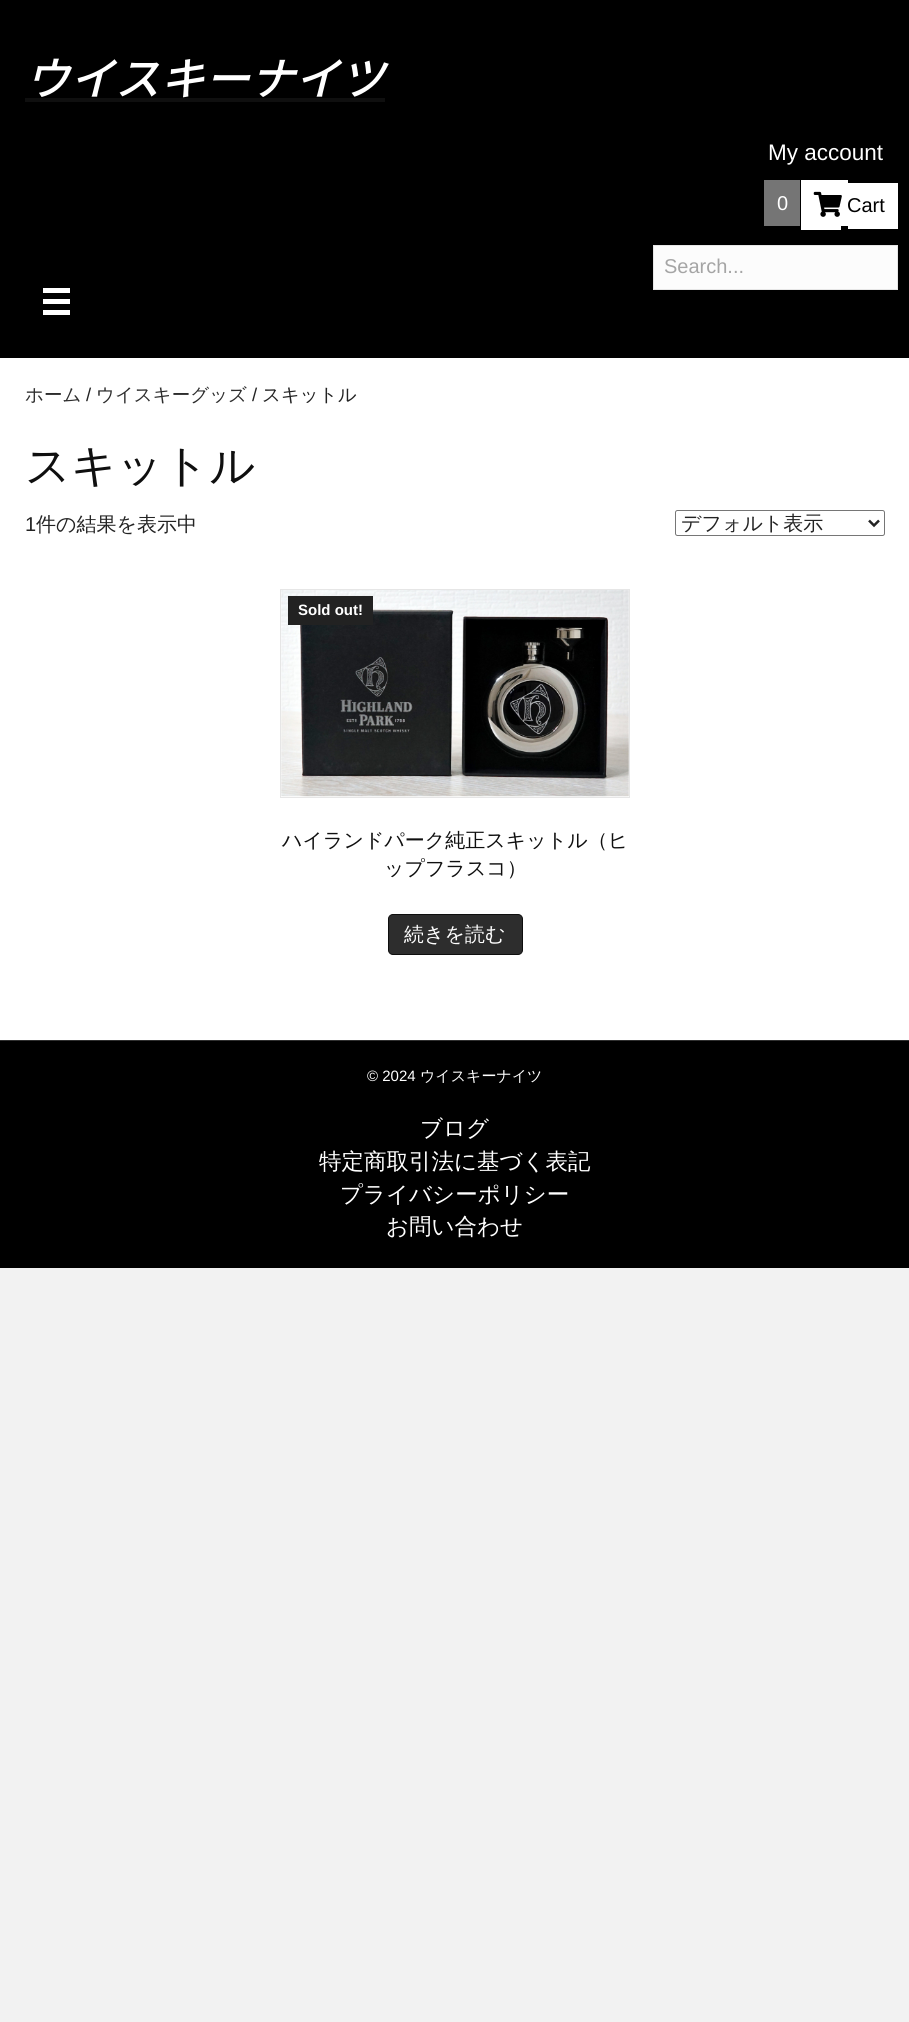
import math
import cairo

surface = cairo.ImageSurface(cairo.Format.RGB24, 909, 2022)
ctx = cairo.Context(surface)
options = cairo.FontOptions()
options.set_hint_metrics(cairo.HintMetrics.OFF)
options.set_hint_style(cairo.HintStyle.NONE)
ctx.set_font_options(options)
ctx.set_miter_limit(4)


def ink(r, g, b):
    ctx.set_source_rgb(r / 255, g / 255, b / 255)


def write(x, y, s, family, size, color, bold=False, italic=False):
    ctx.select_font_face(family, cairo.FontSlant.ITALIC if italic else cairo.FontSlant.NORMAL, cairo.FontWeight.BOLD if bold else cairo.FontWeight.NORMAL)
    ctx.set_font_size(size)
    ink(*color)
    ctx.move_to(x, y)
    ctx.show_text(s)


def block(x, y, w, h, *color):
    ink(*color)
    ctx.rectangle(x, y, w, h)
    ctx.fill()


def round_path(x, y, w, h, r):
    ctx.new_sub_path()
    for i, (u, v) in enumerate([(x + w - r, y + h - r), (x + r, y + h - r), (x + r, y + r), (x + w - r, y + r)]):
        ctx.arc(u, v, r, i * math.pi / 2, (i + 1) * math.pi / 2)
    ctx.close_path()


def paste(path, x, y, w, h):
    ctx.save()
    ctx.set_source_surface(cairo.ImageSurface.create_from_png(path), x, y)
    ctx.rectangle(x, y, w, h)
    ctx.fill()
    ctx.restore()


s1 = dict(family="Noto Sans JP Thin", size=45, color=(255, 255, 255), italic=True)
s2 = dict(family="Liberation Sans", size=22.5, color=(255, 255, 255))
s3 = dict(family="Liberation Sans", size=20, color=(255, 255, 255))
s4 = dict(family="Liberation Sans", size=20, color=(0, 0, 0))
s5 = dict(family="Liberation Sans", size=20, color=(165, 165, 165))
s6 = dict(family="WenQuanYi Zen Hei Medium", size=18.5, color=(45, 45, 45))
s7 = dict(family="Liberation Sans", size=18.5, color=(35, 35, 35))
s8 = dict(family="WenQuanYi Zen Hei Medium", size=18.5, color=(35, 35, 35))
s9 = dict(family="WenQuanYi Zen Hei Medium", size=45, color=(15, 15, 15))
s10 = dict(family="Liberation Sans", size=20, color=(35, 35, 35))
s11 = dict(family="WenQuanYi Zen Hei Medium", size=20, color=(35, 35, 35))
s12 = dict(family="Liberation Sans", size=15, color=(255, 255, 255), bold=True)
s13 = dict(family="WenQuanYi Zen Hei Medium", size=20, color=(15, 15, 15))
s14 = dict(family="WenQuanYi Zen Hei Medium", size=20, color=(255, 255, 255))
s15 = dict(family="Liberation Sans", size=15, color=(255, 255, 255))
s16 = dict(family="WenQuanYi Zen Hei Medium", size=15, color=(255, 255, 255))
s17 = dict(family="WenQuanYi Zen Hei Medium", size=22.5, color=(255, 255, 255))

ink(242, 242, 242)
ctx.paint()
block(0, 0, 909, 358, 0, 0, 0)
write(25, 95, "ウイスキーナイツ", **s1)
block(25, 98, 360, 4, 15, 15, 15)
write(768, 160, "My account", **s2)
block(764, 180, 36, 46, 117, 117, 117)
write(777, 210, "0", **s3)
block(801, 180, 40, 50, 255, 255, 255)
block(841, 180, 7, 46, 255, 255, 255)
block(848, 183, 50, 46, 255, 255, 255)
paste("pic1.png", 813, 191, 29, 26)
write(847, 212, "Cart", **s4)
ink(252, 252, 252)
ctx.rectangle(653.5, 245.5, 244, 44)
ctx.fill_preserve()
ink(230, 230, 230)
ctx.set_line_width(1)
ctx.stroke()
write(664, 273, "Search...", **s5)
block(43, 288, 27, 5, 255, 255, 255)
block(43, 299, 27, 5, 255, 255, 255)
block(43, 310, 27, 5, 255, 255, 255)
block(0, 358, 909, 682, 255, 255, 255)
write(25, 401, "ホーム", **s6)
write(86, 401, "/", **s7)
write(96, 401, "ウイスキーグッズ", **s6)
write(252, 401, "/", **s7)
write(262, 401, "スキットル", **s8)
write(25, 481, "スキットル", **s9)
write(25, 531, "1", **s10)
write(36, 531, "件の結果を表示中", **s11)
round_path(675.5, 510.5, 209, 25, 2)
ink(118, 118, 118)
ctx.stroke()
ctx.new_path()
ctx.move_to(869, 520.5)
ctx.line_to(874, 525.5)
ctx.line_to(879, 520.5)
ink(35, 35, 35)
ctx.set_line_width(2.5)
ctx.stroke()
write(681, 530, "デフォルト表示", **s11)
ctx.rectangle(280.5, 589.5, 349, 208)
ink(230, 230, 230)
ctx.set_line_width(1)
ctx.stroke()
paste("pic2.png", 281, 590, 348, 207)
block(288, 596, 85, 29, 34, 34, 34)
write(298, 615, "Sold out!", **s12)
write(282, 847, "ハイランドパーク純正スキットル（ヒ", **s13)
write(384, 875, "ップフラスコ）", **s13)
ink(45, 45, 45)
round_path(388.5, 914.5, 134, 40, 4.5)
ctx.fill_preserve()
ink(14, 14, 14)
ctx.stroke()
write(404, 941, "続きを読む", **s14)
block(0, 1041, 909, 227, 0, 0, 0)
block(0, 1040, 909, 1, 48, 48, 48)
write(367, 1081, "© 2024", **s15)
write(420, 1081, "ウイスキーナイツ", **s16)
write(420, 1136, "ブログ", **s17)
write(319, 1169, "特定商取引法に基づく表記", **s17)
write(340, 1202, "プライバシーポリシー", **s17)
write(386, 1234, "お問い合わせ", **s17)
surface.write_to_png("screenshot.png")
